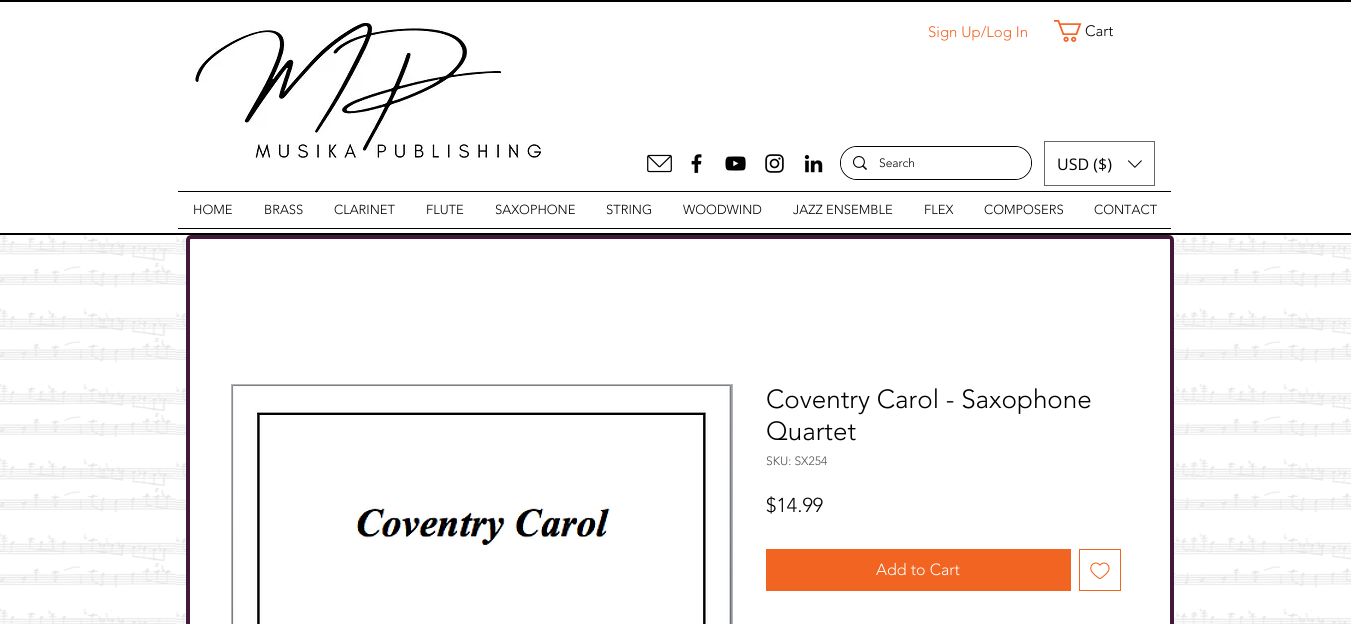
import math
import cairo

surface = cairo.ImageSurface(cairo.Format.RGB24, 1351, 624)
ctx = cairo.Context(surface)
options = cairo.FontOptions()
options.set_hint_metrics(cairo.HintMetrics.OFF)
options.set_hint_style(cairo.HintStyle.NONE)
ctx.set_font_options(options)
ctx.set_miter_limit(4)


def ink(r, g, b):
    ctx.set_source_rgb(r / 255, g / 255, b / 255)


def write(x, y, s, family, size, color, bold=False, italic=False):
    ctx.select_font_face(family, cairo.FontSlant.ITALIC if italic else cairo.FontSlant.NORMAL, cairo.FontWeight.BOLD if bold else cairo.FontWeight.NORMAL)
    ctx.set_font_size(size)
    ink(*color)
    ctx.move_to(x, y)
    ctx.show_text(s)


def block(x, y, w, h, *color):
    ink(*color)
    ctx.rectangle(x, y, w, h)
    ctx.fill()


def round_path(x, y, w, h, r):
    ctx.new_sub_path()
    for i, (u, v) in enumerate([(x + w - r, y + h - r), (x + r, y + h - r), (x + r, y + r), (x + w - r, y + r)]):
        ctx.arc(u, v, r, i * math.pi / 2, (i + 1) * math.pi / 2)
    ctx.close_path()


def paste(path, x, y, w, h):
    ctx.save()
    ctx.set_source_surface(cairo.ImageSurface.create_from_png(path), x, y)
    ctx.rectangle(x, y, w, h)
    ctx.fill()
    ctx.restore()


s1 = dict(family="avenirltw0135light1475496 Light", size=15, color=(242, 100, 34))
s2 = dict(family="avenirltw0135light1475496 Light", size=15, color=(0, 0, 0))
s3 = dict(family="avenirltw0135light1475496 Light", size=12, color=(0, 0, 0))
s4 = dict(family="Open Sans", size=16, color=(0, 0, 0))
s5 = dict(family="avenirltw0135light1475496 Light", size=13, color=(0, 0, 0))
s6 = dict(family="avenirltw0135light1475496 Light", size=26, color=(0, 0, 0))
s7 = dict(family="avenirltw0135light1475496 Light", size=12, color=(79, 79, 79))
s8 = dict(family="avenirltw0135light1475496 Light", size=20, color=(0, 0, 0))
s9 = dict(family="avenirltw0135light1475496 Light", size=16, color=(255, 255, 255))

ink(255, 255, 255)
ctx.paint()
block(0, 0, 1351, 2, 0, 0, 0)
block(0, 233, 1351, 2, 0, 0, 0)
paste("pic1.png", 195, 23, 348, 137)
write(928, 37, "Sign Up/Log In", **s1)
paste("pic2.png", 1054, 20, 28, 22)
write(1085, 36, "Cart", **s2)
paste("pic3.png", 647, 154, 25, 19)
paste("pic4.png", 691, 154, 11, 20)
paste("pic5.png", 725, 156, 21, 15)
paste("pic6.png", 765, 154, 19, 19)
paste("pic7.png", 804, 154, 19, 19)
round_path(840.5, 146.5, 191, 33, 16.5)
ctx.set_line_width(1)
ctx.stroke()
ink(255, 255, 255)
round_path(841, 147, 190, 32, 16)
ctx.fill()
paste("pic8.png", 853, 156, 14, 14)
write(879, 167, "Search", **s3)
ctx.rectangle(1044.5, 141.5, 110, 44)
ink(102, 102, 102)
ctx.stroke()
write(1057, 170, "USD ($)", **s4)
paste("pic9.png", 1127, 160, 15, 8)
block(178, 191, 993, 1, 0, 0, 0)
block(178, 228, 993, 1, 0, 0, 0)
write(193, 214, "HOME", **s5)
write(264, 214, "BRASS", **s5)
write(334, 214, "CLARINET", **s5)
write(426, 214, "FLUTE", **s5)
write(495, 214, "SAXOPHONE", **s5)
write(606, 214, "STRING", **s5)
write(683, 214, "WOODWIND", **s5)
write(793, 214, "JAZZ ENSEMBLE", **s5)
write(924, 214, "FLEX", **s5)
write(984, 214, "COMPOSERS", **s5)
write(1094, 214, "CONTACT", **s5)
paste("pic12.png", 0, 235, 1351, 389)
ink(255, 255, 255)
round_path(188, 237, 984, 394, 3)
ctx.fill_preserve()
ink(68, 24, 57)
ctx.set_line_width(4)
ctx.stroke()
ctx.rectangle(231.5, 384.5, 501, 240)
ink(180, 180, 180)
ctx.set_line_width(1)
ctx.stroke()
paste("pic10.png", 232, 385, 500, 239)
write(766, 408, "Coventry Carol - Saxophone", **s6)
write(766, 440, "Quartet", **s6)
write(766, 465, "SKU: SX254", **s7)
write(766, 512, "$14.99", **s8)
block(766, 549, 305, 42, 242, 100, 34)
write(876, 575, "Add to Cart", **s9)
ctx.rectangle(1079.5, 549.5, 41, 41)
ink(242, 100, 34)
ctx.stroke()
paste("pic11.png", 1090, 562, 20, 18)
surface.write_to_png("screenshot.png")
